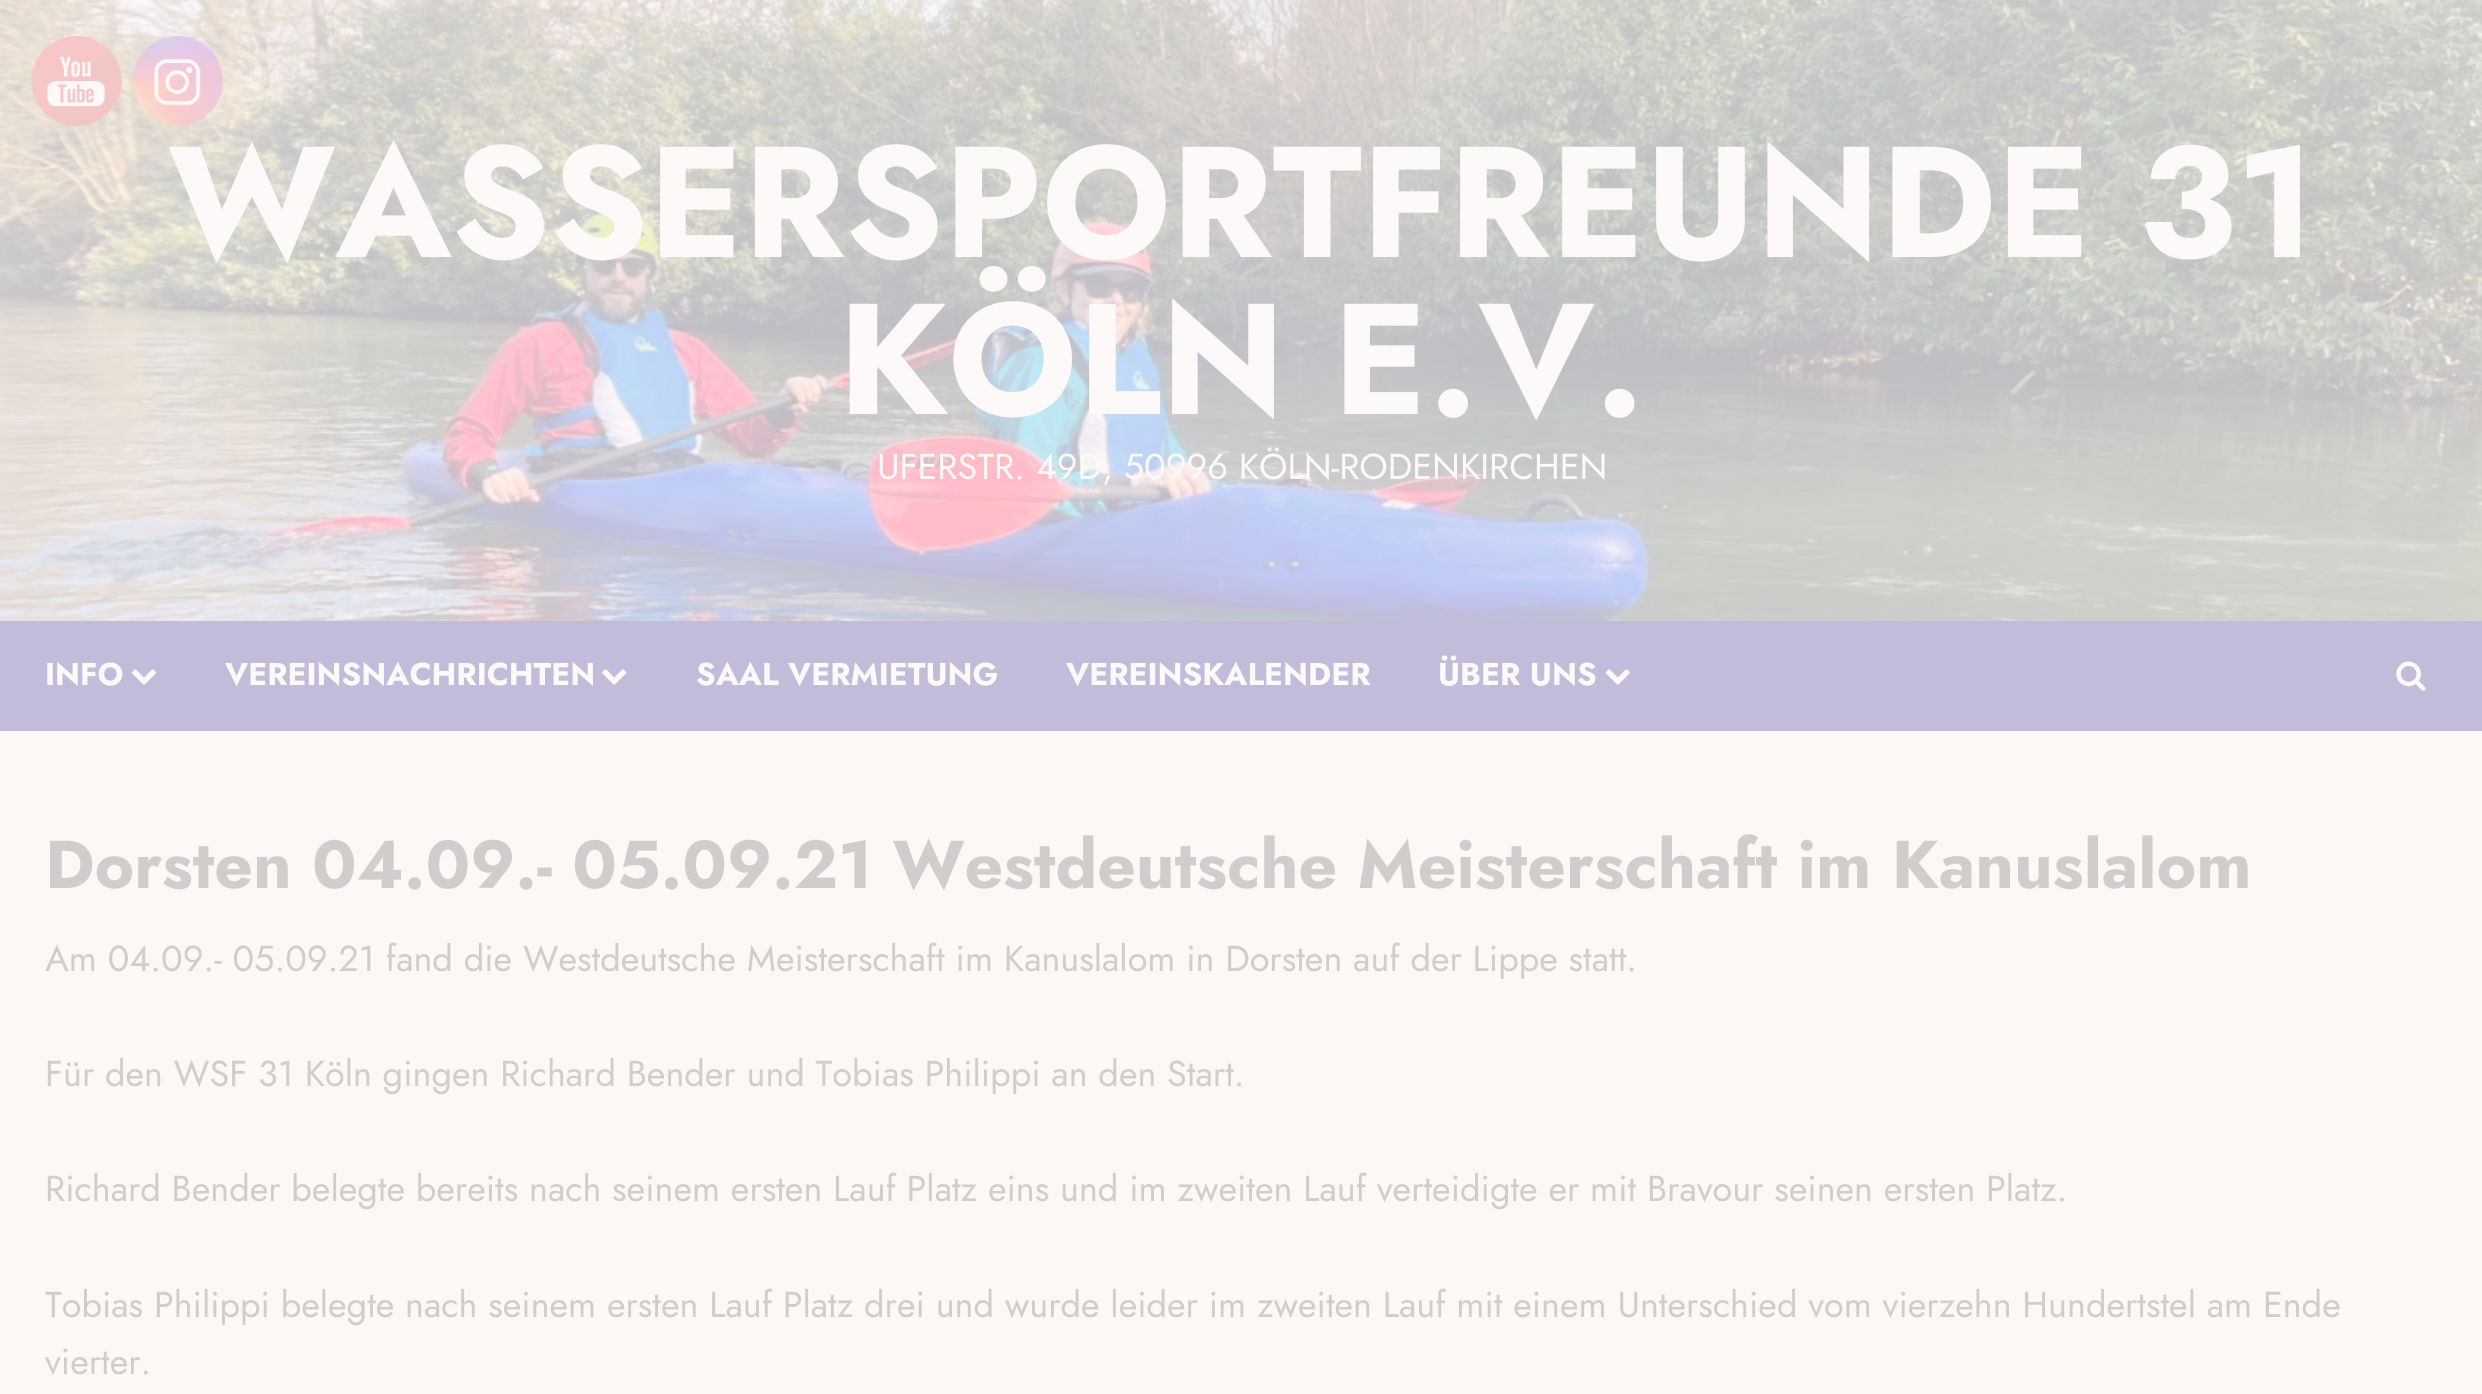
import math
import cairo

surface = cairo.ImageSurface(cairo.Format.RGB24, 2482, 1394)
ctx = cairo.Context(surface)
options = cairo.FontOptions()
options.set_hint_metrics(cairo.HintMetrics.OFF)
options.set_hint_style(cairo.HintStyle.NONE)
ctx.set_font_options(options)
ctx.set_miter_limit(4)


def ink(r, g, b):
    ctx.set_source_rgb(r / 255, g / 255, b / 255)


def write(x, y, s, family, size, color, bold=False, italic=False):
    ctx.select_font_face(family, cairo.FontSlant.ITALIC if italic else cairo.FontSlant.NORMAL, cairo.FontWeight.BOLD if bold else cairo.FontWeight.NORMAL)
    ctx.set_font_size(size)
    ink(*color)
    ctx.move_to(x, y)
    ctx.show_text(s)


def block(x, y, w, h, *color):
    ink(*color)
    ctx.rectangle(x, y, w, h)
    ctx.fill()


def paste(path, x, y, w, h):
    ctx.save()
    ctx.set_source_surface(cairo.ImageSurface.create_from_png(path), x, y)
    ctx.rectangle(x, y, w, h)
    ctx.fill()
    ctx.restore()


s1 = dict(family="Jost", size=157.5, color=(253, 249, 248), bold=True)
s2 = dict(family="Jost", size=36, color=(253, 249, 248))
s3 = dict(family="Jost", size=31.5, color=(253, 249, 248), bold=True)
s4 = dict(family="Jost", size=67.5, color=(210, 205, 205), bold=True)
s5 = dict(family="Jost", size=36, color=(210, 205, 205))

ink(253, 247, 246)
ctx.paint()
paste("pic3.png", 0, 0, 2482, 621)
paste("pic1.png", 31, 36, 91, 90)
paste("pic2.png", 132, 36, 91, 90)
write(168, 257, "WASSERSPORTFREUNDE 31", **s1)
write(838, 414, "KÖLN E.V.", **s1)
write(877, 479, "UFERSTR. 49D, 50996 KÖLN-RODENKIRCHEN", **s2)
block(0, 621, 2482, 110, 193, 188, 218)
write(45, 685, "INFO", **s3)
paste("pic4.png", 131, 669, 26, 16)
write(225, 685, "VEREINSNACHRICHTEN", **s3)
paste("pic5.png", 602, 669, 25, 16)
write(696, 685, "SAAL VERMIETUNG", **s3)
write(1066, 685, "VEREINSKALENDER", **s3)
write(1438, 685, "ÜBER UNS", **s3)
paste("pic6.png", 1605, 669, 25, 16)
paste("pic7.png", 2396, 661, 30, 30)
write(45, 888, "Dorsten 04.09.- 05.09.21 Westdeutsche Meisterschaft im Kanuslalom", **s4)
write(45, 971, "Am 04.09.- 05.09.21 fand die Westdeutsche Meisterschaft im Kanuslalom in Dorsten auf der Lippe statt.", **s5)
write(45, 1086, "Für den WSF 31 Köln gingen Richard Bender und Tobias Philippi an den Start.", **s5)
write(45, 1201, "Richard Bender belegte bereits nach seinem ersten Lauf Platz eins und im zweiten Lauf verteidigte er mit Bravour seinen ersten Platz.", **s5)
write(45, 1317, "Tobias Philippi belegte nach seinem ersten Lauf Platz drei und wurde leider im zweiten Lauf mit einem Unterschied vom vierzehn Hundertstel am Ende", **s5)
write(45, 1374, "vierter.", **s5)
surface.write_to_png("screenshot.png")
